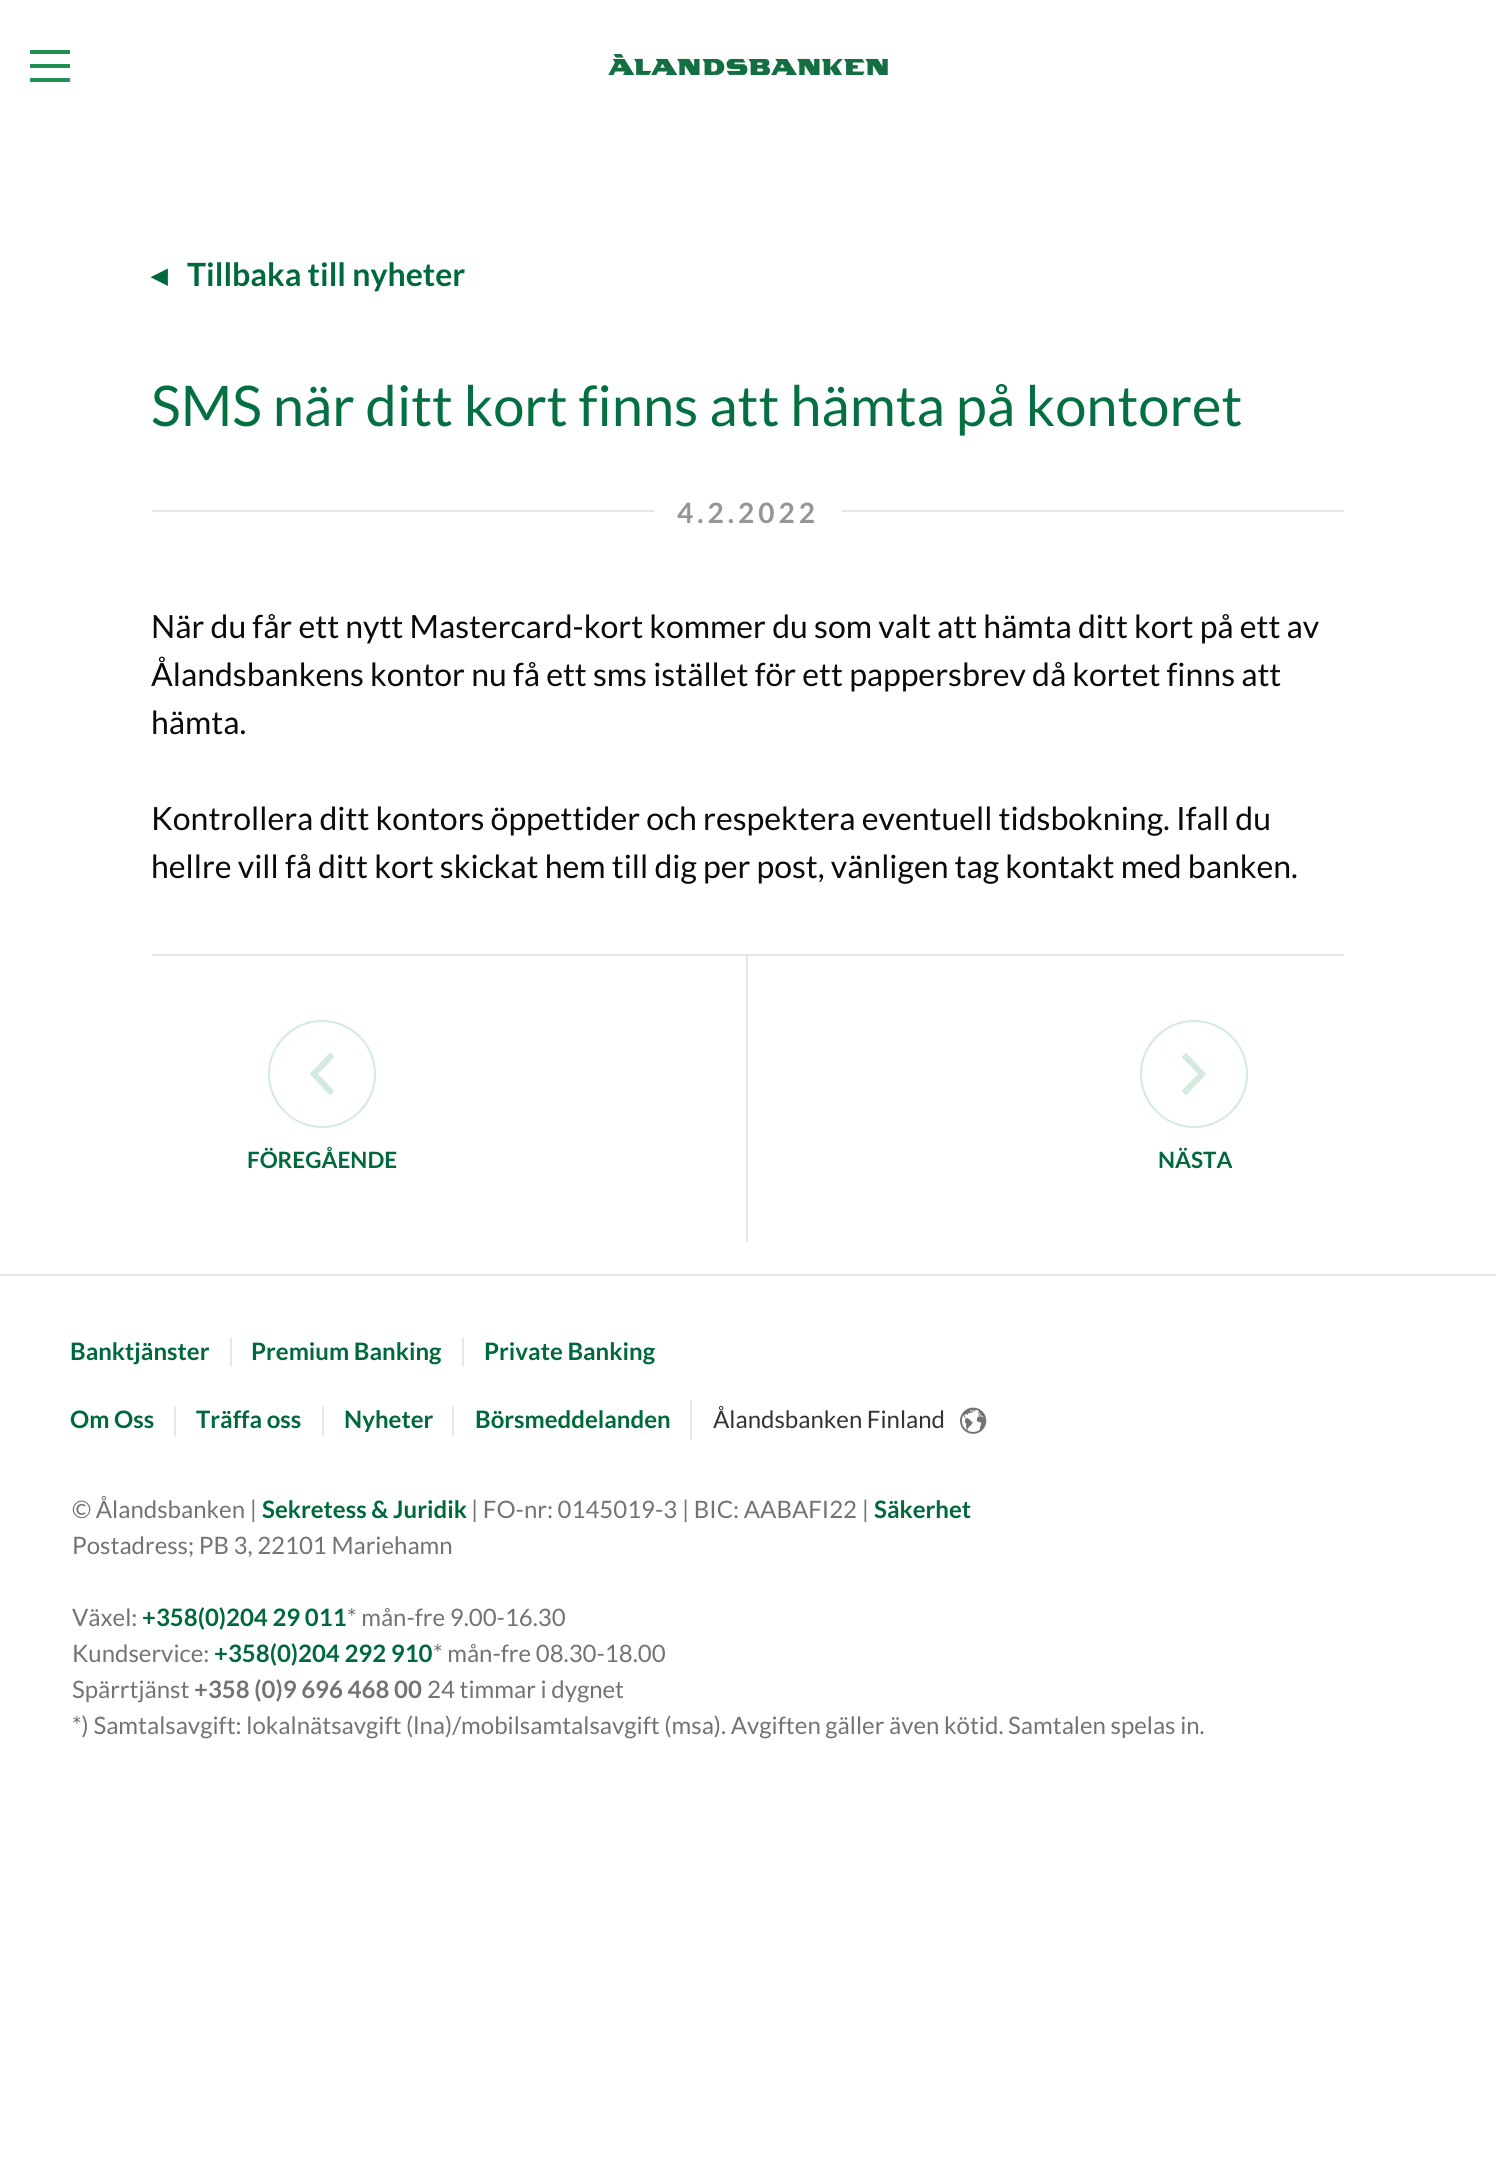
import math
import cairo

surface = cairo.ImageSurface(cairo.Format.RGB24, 1496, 2165)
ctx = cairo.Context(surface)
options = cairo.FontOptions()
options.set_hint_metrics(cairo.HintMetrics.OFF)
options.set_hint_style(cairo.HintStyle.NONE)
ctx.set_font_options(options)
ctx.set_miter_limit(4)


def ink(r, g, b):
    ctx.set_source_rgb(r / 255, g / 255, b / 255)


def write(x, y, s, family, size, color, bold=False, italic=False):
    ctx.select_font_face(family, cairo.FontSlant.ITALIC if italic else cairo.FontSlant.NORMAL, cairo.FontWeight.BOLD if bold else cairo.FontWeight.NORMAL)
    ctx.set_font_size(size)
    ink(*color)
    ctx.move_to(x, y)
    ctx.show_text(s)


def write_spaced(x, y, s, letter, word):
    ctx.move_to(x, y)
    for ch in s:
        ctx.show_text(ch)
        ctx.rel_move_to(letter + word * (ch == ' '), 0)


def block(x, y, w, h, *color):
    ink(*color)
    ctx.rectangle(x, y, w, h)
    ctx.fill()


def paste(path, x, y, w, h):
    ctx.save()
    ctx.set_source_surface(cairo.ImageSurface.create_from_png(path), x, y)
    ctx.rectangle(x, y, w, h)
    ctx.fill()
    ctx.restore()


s1 = dict(family="DejaVu Sans", size=32, color=(0, 105, 60), bold=True)
s2 = dict(family="Lato", size=32, color=(0, 105, 60), bold=True)
s3 = dict(family="Lato", size=56, color=(4, 112, 66))
s4 = dict(family="Lato", size=32, color=(10, 10, 10))
s5 = dict(family="Lato", size=22.5, color=(0, 105, 60), bold=True)
s6 = dict(family="Lato", size=24, color=(0, 105, 60), bold=True)
s7 = dict(family="Lato", size=24, color=(51, 51, 51))
s8 = dict(family="Lato", size=24, color=(115, 115, 115))
s9 = dict(family="Lato", size=24, color=(115, 115, 115), bold=True)

ink(255, 255, 255)
ctx.paint()
block(30, 50, 40, 4, 33, 145, 81)
block(30, 64, 40, 4, 33, 145, 81)
block(30, 78, 40, 4, 33, 145, 81)
paste("pic1.png", 608, 54, 280, 21)
write(151, 286, "◂", **s1)
write(187, 286, "Tillbaka till nyheter", **s2)
write(151, 426, "SMS när ditt kort finns att hämta på kontoret", **s3)
block(152, 510, 1192, 2, 229, 229, 229)
block(654, 510, 188, 2, 255, 255, 255)
ctx.select_font_face("Lato", cairo.FontSlant.NORMAL, cairo.FontWeight.BOLD)
ctx.set_font_size(28)
ink(149, 149, 149)
write_spaced(677, 523, "4.2.2022", 4, 0)
write(151, 638, "När du får ett nytt Mastercard-kort kommer du som valt att hämta ditt kort på ett av", **s4)
write(151, 686, "Ålandsbankens kontor nu få ett sms istället för ett pappersbrev då kortet finns att", **s4)
write(151, 734, "hämta.", **s4)
write(151, 830, "Kontrollera ditt kontors öppettider och respektera eventuell tidsbokning. Ifall du", **s4)
write(151, 878, "hellre vill få ditt kort skickat hem till dig per post, vänligen tag kontakt med banken.", **s4)
block(152, 954, 1192, 2, 229, 229, 229)
block(746, 954, 2, 288, 229, 229, 229)
ctx.new_path()
ctx.arc(322, 1074, 53, 0, 2 * math.pi)
ink(211, 234, 222)
ctx.stroke()
paste("pic2.png", 310, 1053, 24, 42)
write(247, 1168, "FÖREGÅENDE", **s5)
ctx.new_path()
ctx.arc(1194, 1074, 53, 0, 2 * math.pi)
ink(211, 234, 222)
ctx.stroke()
paste("pic3.png", 1182, 1053, 24, 42)
write(1158, 1168, "NÄSTA", **s5)
block(0, 1274, 1496, 2, 229, 229, 229)
write(70, 1360, "Banktjänster", **s6)
block(230, 1338, 2, 28, 233, 232, 231)
write(251, 1360, "Premium Banking", **s6)
block(462, 1338, 2, 28, 233, 232, 231)
write(484, 1360, "Private Banking", **s6)
write(70, 1428, "Om Oss", **s6)
block(174, 1406, 2, 30, 233, 232, 231)
write(196, 1428, "Träffa oss", **s6)
block(322, 1406, 2, 30, 233, 232, 231)
write(344, 1428, "Nyheter", **s6)
block(452, 1406, 2, 30, 233, 232, 231)
write(475, 1428, "Börsmeddelanden", **s6)
block(690, 1400, 2, 40, 233, 232, 231)
write(713, 1428, "Ålandsbanken Finland", **s7)
paste("pic4.png", 960, 1407, 27, 27)
write(72, 1518, "© Ålandsbanken |", **s8)
write(262, 1518, "Sekretess & Juridik", **s6)
write(471, 1518, "| FO-nr: 0145019-3 | BIC: AABAFI22 |", **s8)
write(874, 1518, "Säkerhet", **s6)
write(72, 1554, "Postadress; PB 3, 22101 Mariehamn", **s8)
write(72, 1626, "Växel:", **s8)
write(142, 1626, "+358(0)204 29 011", **s6)
write(347, 1626, "* mån-fre 9.00-16.30", **s8)
write(72, 1662, "Kundservice:", **s8)
write(214, 1662, "+358(0)204 292 910", **s6)
write(433, 1662, "* mån-fre 08.30-18.00", **s8)
write(72, 1698, "Spärrtjänst", **s8)
write(194, 1698, "+358 (0)9 696 468 00", **s9)
write(427, 1698, "24 timmar i dygnet", **s8)
write(72, 1734, "*) Samtalsavgift: lokalnätsavgift (lna)/mobilsamtalsavgift (msa). Avgiften gäller även kötid. Samtalen spelas in.", **s8)
surface.write_to_png("screenshot.png")
